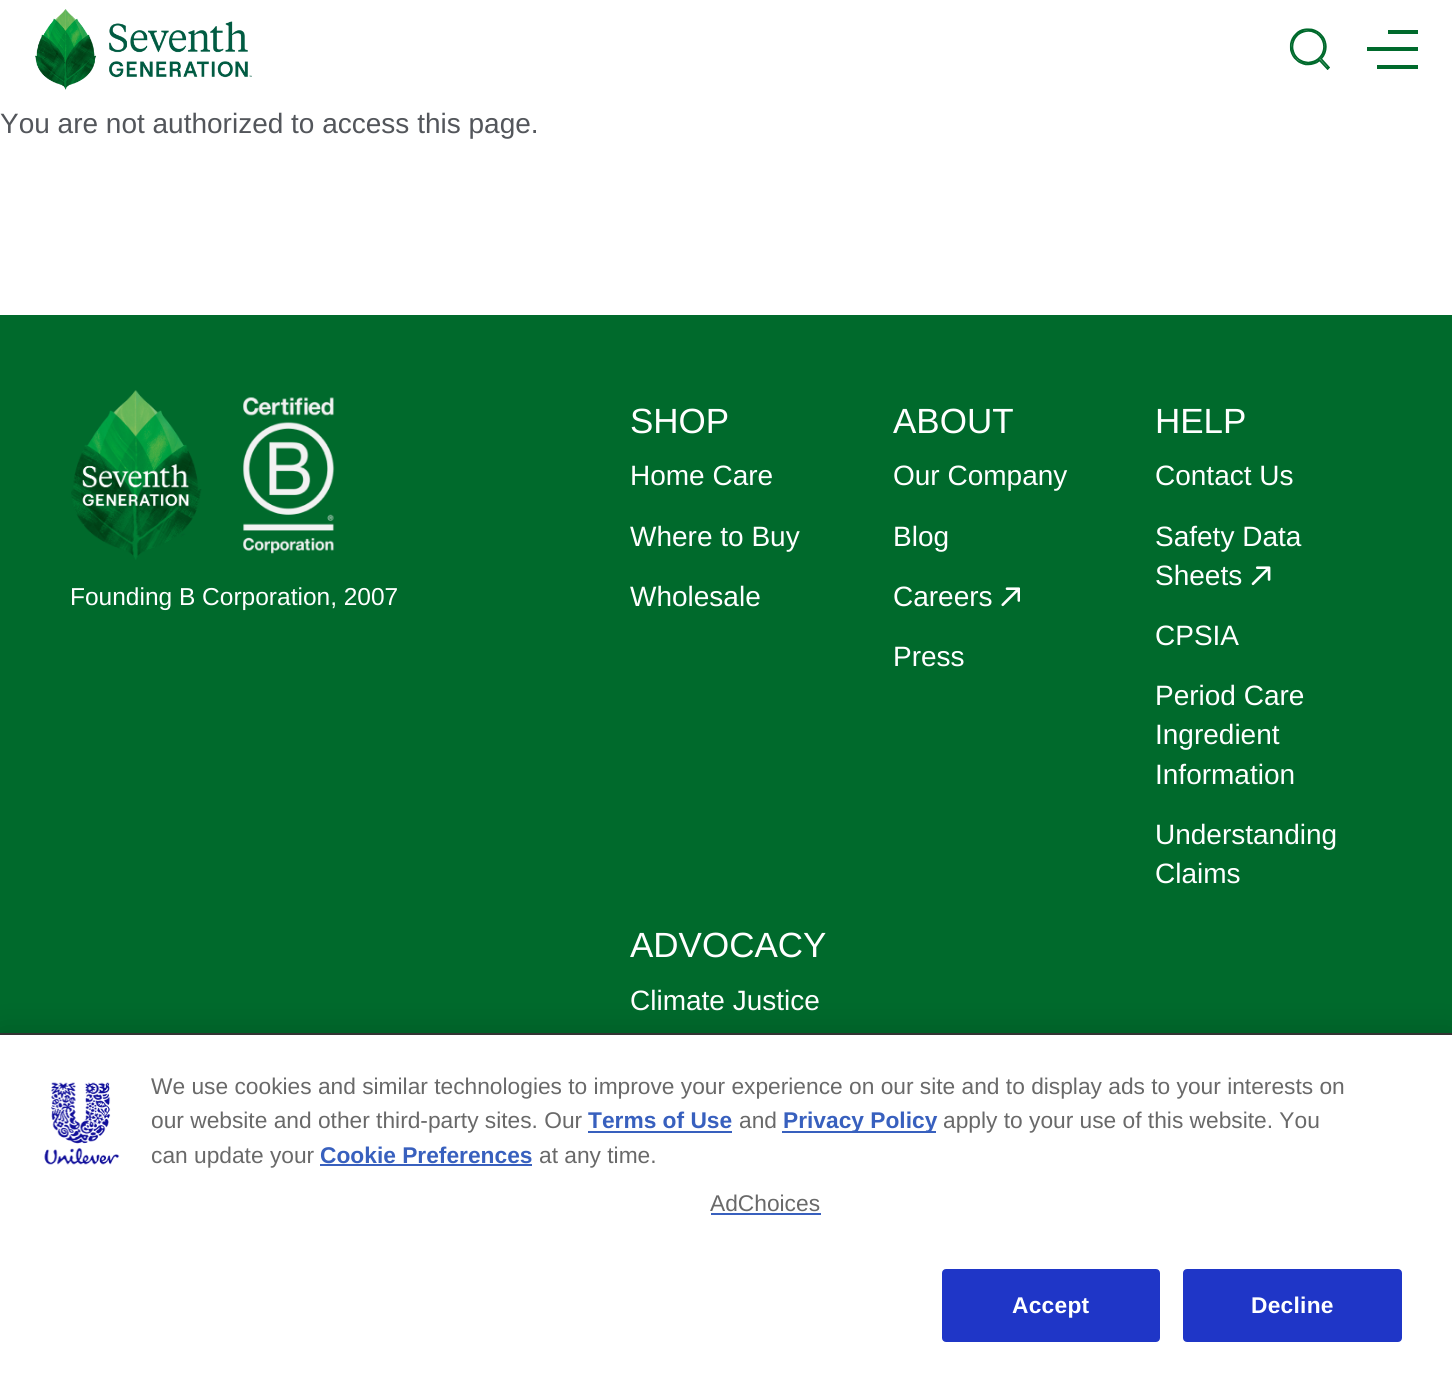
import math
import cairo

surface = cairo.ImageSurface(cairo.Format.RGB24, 1452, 1376)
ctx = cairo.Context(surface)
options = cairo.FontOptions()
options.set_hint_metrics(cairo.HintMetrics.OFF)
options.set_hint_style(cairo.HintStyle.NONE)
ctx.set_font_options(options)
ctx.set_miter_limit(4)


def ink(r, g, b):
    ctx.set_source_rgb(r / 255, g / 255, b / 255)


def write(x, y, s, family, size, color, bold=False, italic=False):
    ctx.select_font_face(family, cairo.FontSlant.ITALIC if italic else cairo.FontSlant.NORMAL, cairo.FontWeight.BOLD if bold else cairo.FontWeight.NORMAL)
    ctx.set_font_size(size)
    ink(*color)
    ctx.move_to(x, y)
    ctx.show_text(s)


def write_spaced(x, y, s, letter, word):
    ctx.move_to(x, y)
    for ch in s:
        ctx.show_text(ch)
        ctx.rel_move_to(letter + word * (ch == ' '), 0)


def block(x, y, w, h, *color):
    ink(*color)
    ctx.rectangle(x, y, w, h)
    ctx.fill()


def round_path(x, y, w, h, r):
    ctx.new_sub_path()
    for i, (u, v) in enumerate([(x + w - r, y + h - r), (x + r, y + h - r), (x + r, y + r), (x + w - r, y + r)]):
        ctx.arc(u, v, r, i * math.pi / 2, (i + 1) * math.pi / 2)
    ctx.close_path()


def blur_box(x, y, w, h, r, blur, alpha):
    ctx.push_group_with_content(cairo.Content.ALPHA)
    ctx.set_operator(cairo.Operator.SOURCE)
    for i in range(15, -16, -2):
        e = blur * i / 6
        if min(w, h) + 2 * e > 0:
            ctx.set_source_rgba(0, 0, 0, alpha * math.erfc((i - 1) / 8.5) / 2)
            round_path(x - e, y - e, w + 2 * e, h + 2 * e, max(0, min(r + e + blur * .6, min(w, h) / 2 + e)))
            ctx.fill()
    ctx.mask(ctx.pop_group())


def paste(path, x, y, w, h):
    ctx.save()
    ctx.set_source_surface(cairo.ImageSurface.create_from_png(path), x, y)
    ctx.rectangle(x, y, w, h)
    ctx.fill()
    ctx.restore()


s1 = dict(family="Liberation Sans", size=28, color=(83, 86, 91))
s2 = dict(family="Liberation Sans", size=24.5, color=(255, 255, 255))
s3 = dict(family="Liberation Sans", size=35, color=(255, 255, 255))
s4 = dict(family="Liberation Sans", size=28, color=(255, 255, 255))
s5 = dict(family="Liberation Sans", size=22.75, color=(105, 105, 105))
s6 = dict(family="Liberation Sans", size=22.75, color=(56, 96, 190), bold=True)

ink(255, 255, 255)
ctx.paint()
paste("pic1.png", 35, 9, 217, 81)
paste("pic2.png", 1289, 28, 41, 42)
block(1388, 30, 30, 4, 0, 106, 44)
block(1367, 47, 51, 4, 0, 106, 44)
block(1377, 65, 41, 4, 0, 106, 44)
write(0, 133, "You are not authorized to access this page.", **s1)
block(0, 315, 1452, 718, 0, 106, 44)
paste("pic3.png", 71, 390, 131, 170)
paste("pic4.png", 243, 397, 92, 157)
write(70, 605, "Founding B Corporation, 2007", **s2)
write(630, 433, "SHOP", **s3)
write(630, 485, "Home Care", **s4)
write(630, 546, "Where to Buy", **s4)
write(630, 606, "Wholesale", **s4)
write(893, 433, "ABOUT", **s3)
write(893, 485, "Our Company", **s4)
write(893, 546, "Blog", **s4)
write(893, 606, "Careers", **s4)
paste("pic5.png", 1001, 587, 19, 20)
write(893, 666, "Press", **s4)
write(1155, 433, "HELP", **s3)
write(1155, 485, "Contact Us", **s4)
write(1155, 546, "Safety Data", **s4)
write(1155, 585, "Sheets", **s4)
paste("pic6.png", 1251, 566, 20, 20)
write(1155, 645, "CPSIA", **s4)
write(1155, 705, "Period Care", **s4)
write(1155, 744, "Ingredient", **s4)
write(1155, 784, "Information", **s4)
write(1155, 844, "Understanding", **s4)
write(1155, 883, "Claims", **s4)
write(630, 957, "ADVOCACY", **s3)
write(630, 1010, "Climate Justice", **s4)
ink(0, 0, 0)
blur_box(0, 1033, 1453, 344, 0, 16, 0.2)
block(0, 1035, 1452, 341, 255, 255, 255)
block(0, 1033, 1452, 2, 51, 51, 51)
paste("pic7.png", 44, 1082, 76, 83)
write(151, 1094, "We use cookies and similar technologies to improve your experience on our site and to display ads to your interests on", **s5)
write(151, 1128, "our website and other third-party sites. Our", **s5)
write(588, 1128, "Terms of Use", **s6)
block(588, 1131, 144, 2, 56, 96, 190)
write(739, 1128, "and", **s5)
block(782, 1131, 154, 2, 56, 96, 190)
write(783, 1128, "Privacy Policy", **s6)
write(943, 1128, "apply to your use of this website. You", **s5)
write(151, 1163, "can update your", **s5)
write(320, 1163, "Cookie Preferences", **s6)
block(320, 1164, 212, 2, 56, 96, 190)
write(539, 1163, "at any time.", **s5)
write(710, 1211, "AdChoices", **s5)
block(711, 1213, 110, 2, 56, 96, 190)
ink(31, 54, 199)
round_path(943, 1270, 216, 71, 3)
ctx.fill_preserve()
ctx.stroke()
ctx.select_font_face("Liberation Sans", cairo.FontSlant.NORMAL, cairo.FontWeight.BOLD)
ink(255, 255, 255)
write_spaced(1012, 1313, "Accept", 0.25, 0)
ink(31, 54, 199)
round_path(1184, 1270, 217, 71, 3)
ctx.fill_preserve()
ctx.stroke()
ink(255, 255, 255)
write_spaced(1251, 1313, "Decline", 0.25, 0)
surface.write_to_png("screenshot.png")
